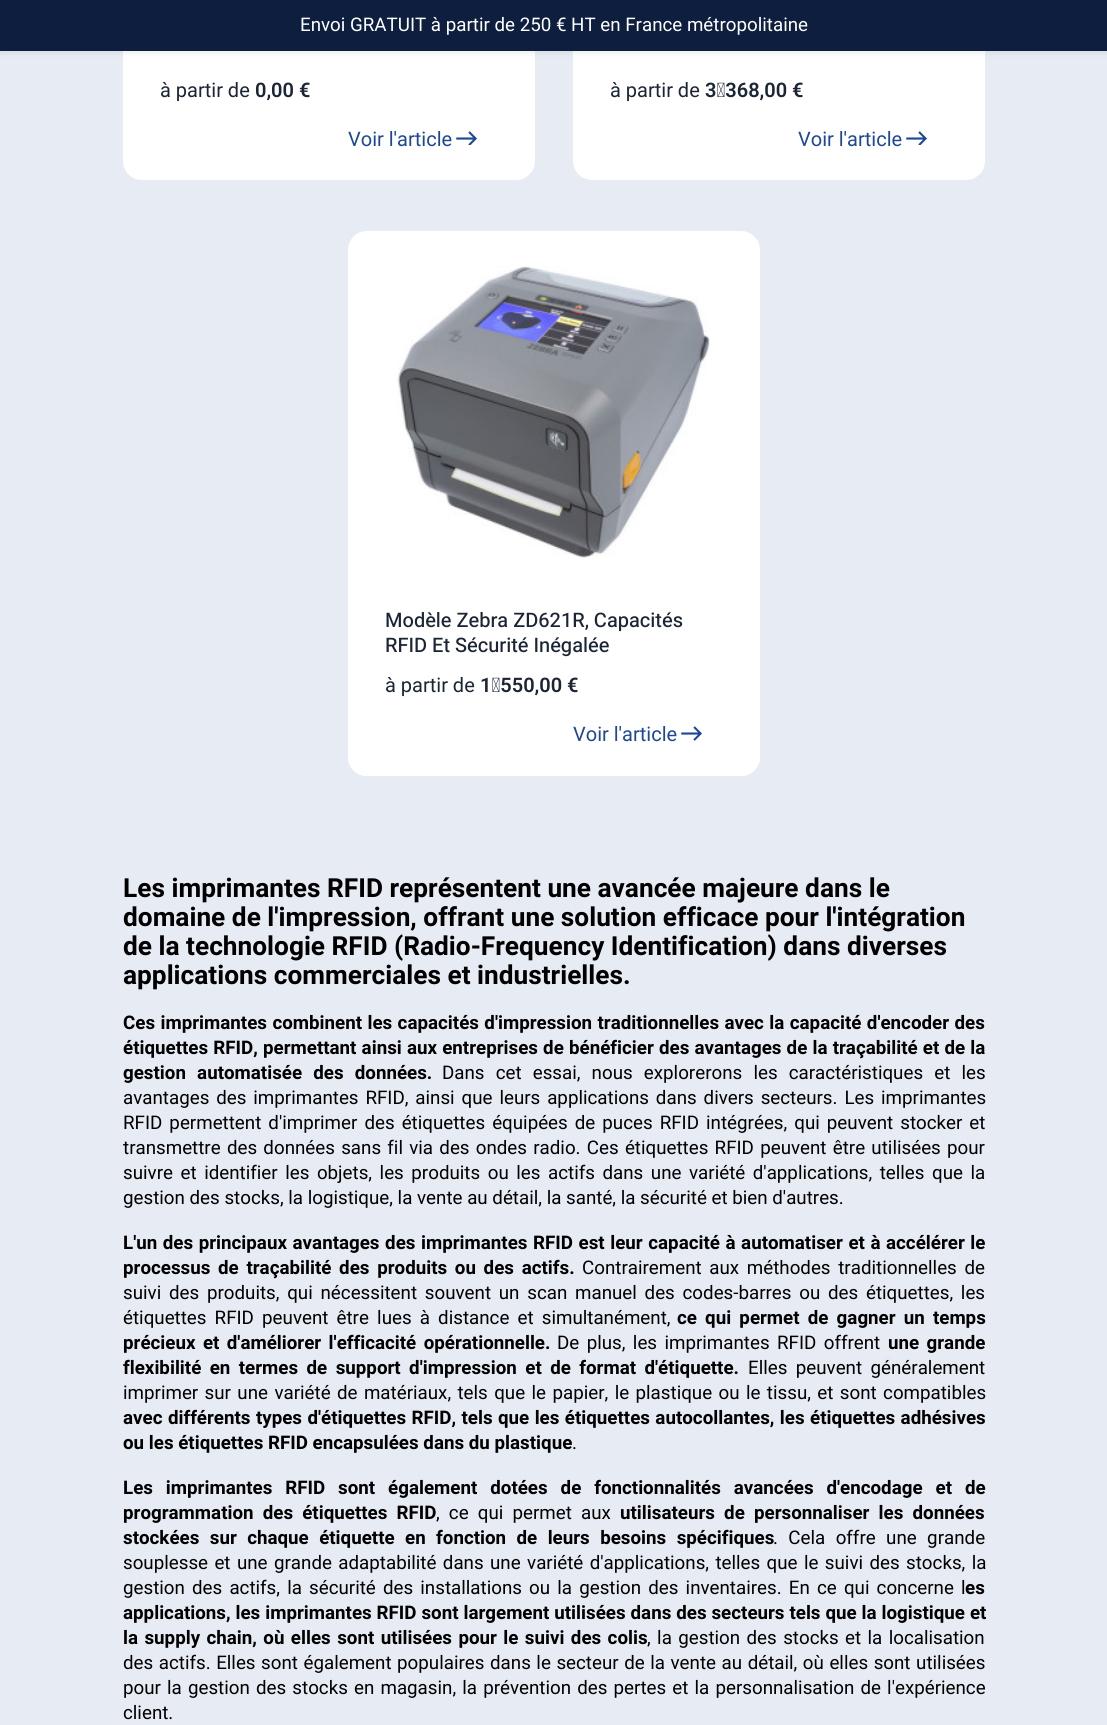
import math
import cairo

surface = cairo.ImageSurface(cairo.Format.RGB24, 1107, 1725)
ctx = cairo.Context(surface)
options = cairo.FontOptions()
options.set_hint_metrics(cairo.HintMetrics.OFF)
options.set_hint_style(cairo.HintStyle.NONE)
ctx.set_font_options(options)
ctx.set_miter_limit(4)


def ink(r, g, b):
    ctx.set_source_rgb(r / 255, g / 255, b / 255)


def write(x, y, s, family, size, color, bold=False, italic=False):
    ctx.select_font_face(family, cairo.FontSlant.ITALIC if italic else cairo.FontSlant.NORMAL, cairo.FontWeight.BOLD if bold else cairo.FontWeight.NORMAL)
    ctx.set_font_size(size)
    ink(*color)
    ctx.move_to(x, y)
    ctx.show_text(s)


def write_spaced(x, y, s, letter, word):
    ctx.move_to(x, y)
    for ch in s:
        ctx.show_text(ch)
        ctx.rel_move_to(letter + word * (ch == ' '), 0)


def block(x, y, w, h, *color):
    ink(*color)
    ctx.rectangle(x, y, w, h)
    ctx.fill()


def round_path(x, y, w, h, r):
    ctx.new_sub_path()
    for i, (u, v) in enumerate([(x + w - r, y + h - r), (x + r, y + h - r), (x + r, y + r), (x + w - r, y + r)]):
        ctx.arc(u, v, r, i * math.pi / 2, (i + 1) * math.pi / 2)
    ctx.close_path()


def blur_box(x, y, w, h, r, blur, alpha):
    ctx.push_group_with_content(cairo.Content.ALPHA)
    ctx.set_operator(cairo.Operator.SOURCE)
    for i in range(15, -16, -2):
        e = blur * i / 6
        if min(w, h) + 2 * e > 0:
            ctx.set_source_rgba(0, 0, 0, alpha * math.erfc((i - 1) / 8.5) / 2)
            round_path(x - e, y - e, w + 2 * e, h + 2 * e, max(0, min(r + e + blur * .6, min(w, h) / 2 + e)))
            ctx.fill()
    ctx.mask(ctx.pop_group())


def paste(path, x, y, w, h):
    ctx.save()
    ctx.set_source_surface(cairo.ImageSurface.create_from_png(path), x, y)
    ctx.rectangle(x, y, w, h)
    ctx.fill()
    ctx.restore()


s1 = dict(family="Roboto", size=18.75, color=(255, 255, 255))
s2 = dict(family="Roboto", size=20, color=(28, 37, 54))
s3 = dict(family="Roboto SemiBold", size=20, color=(28, 37, 54))
s4 = dict(family="Roboto", size=20, color=(30, 71, 150))
s5 = dict(family="Heebo Medium", size=20, color=(28, 37, 54))
s6 = dict(family="Roboto", size=26.25, color=(0, 0, 0), bold=True)
s7 = dict(family="Roboto", size=18.75, color=(0, 0, 0))
s8 = dict(family="Roboto", size=18.75, color=(0, 0, 0), bold=True)

ink(231, 235, 243)
ctx.paint()
ink(255, 255, 255)
ctx.new_path()
ctx.move_to(123, 13)
ctx.line_to(535, 13)
ctx.line_to(535, 161)
ctx.curve_to(535, 171.5, 526.5, 180, 516, 180)
ctx.line_to(142, 180)
ctx.curve_to(131.5, 180, 123, 171.5, 123, 161)
ctx.close_path()
ctx.fill()
ctx.new_path()
ctx.move_to(573, 13)
ctx.line_to(985, 13)
ctx.line_to(985, 161)
ctx.curve_to(985, 171.5, 976.5, 180, 966, 180)
ctx.line_to(592, 180)
ctx.curve_to(581.5, 180, 573, 171.5, 573, 161)
ctx.close_path()
ctx.fill()
ink(149, 157, 165)
blur_box(0, 1, 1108, 52, 0, 3, 0.2)
block(0, 0, 1107, 51, 13, 30, 63)
write(300, 31, "Envoi GRATUIT à partir de 250 € HT en France métropolitaine", **s1)
write(160, 97, "à partir de", **s2)
write(255, 97, "0,00 €", **s3)
write(348, 146, "Voir l'article", **s4)
paste("pic1.png", 456, 131, 21, 14)
write(610, 97, "à partir de", **s2)
write(705, 97, "3 368,00 €", **s3)
write(798, 146, "Voir l'article", **s4)
paste("pic1.png", 906, 131, 21, 14)
ink(255, 255, 255)
round_path(348, 231, 412, 545, 19)
ctx.fill()
paste("pic2.png", 397, 266, 313, 292)
ctx.new_path()
ctx.move_to(348, 609)
ctx.line_to(760, 609)
ctx.line_to(760, 757)
ctx.curve_to(760, 767.5, 751.5, 776, 741, 776)
ctx.line_to(367, 776)
ctx.curve_to(356.5, 776, 348, 767.5, 348, 757)
ctx.close_path()
ctx.fill()
write(385, 627, "Modèle Zebra ZD621R, Capacités", **s5)
write(385, 652, "RFID Et Sécurité Inégalée", **s5)
write(385, 692, "à partir de", **s2)
write(480, 692, "1 550,00 €", **s3)
write(573, 741, "Voir l'article", **s4)
paste("pic3.png", 681, 726, 21, 15)
write(123, 897, "Les imprimantes RFID représentent une avancée majeure dans le", **s6)
write(123, 926, "domaine de l'impression, offrant une solution efficace pour l'intégration", **s6)
write(123, 955, "de la technologie RFID (Radio-Frequency Identification) dans diverses", **s6)
write(123, 984, "applications commerciales et industrielles.", **s6)
ctx.set_font_size(18.75)
write_spaced(123, 1029, "Ces imprimantes combinent les capacités d'impression traditionnelles avec la capacité d'encoder des", 0, 0.75)
write_spaced(123, 1054, "étiquettes RFID, permettant ainsi aux entreprises de bénéficier des avantages de la traçabilité et de la", 0, 0.5)
write_spaced(123, 1079, "gestion automatisée des données.", 0, 6.5)
ctx.select_font_face("Roboto")
write_spaced(442, 1079, "Dans cet essai, nous explorerons les caractéristiques et les", 0, 6.5)
write_spaced(123, 1104, "avantages des imprimantes RFID, ainsi que leurs applications dans divers secteurs. Les imprimantes", 0, 2.25)
write_spaced(123, 1129, "RFID permettent d'imprimer des étiquettes équipées de puces RFID intégrées, qui peuvent stocker et", 0, 2.4)
write_spaced(123, 1154, "transmettre des données sans fil via des ondes radio. Ces étiquettes RFID peuvent être utilisées pour", 0, 1.6)
write_spaced(123, 1179, "suivre et identifier les objets, les produits ou les actifs dans une variété d'applications, telles que la", 0, 2.9)
write(123, 1204, "gestion des stocks, la logistique, la vente au détail, la santé, la sécurité et bien d'autres.", **s7)
ctx.select_font_face("Roboto", cairo.FontSlant.NORMAL, cairo.FontWeight.BOLD)
write_spaced(123, 1249, "L'un des principaux avantages des imprimantes RFID est leur capacité à automatiser et à accélérer le", 0, 0.9)
write_spaced(123, 1274, "processus de traçabilité des produits ou des actifs.", 0, 3)
ctx.select_font_face("Roboto")
write_spaced(582, 1274, "Contrairement aux méthodes traditionnelles de", 0, 3)
write_spaced(123, 1299, "suivi des produits, qui nécessitent souvent un scan manuel des codes-barres ou des étiquettes, les", 0, 3.1)
write_spaced(123, 1324, "étiquettes RFID peuvent être lues à distance et simultanément,", 0, 3.5)
ctx.select_font_face("Roboto", cairo.FontSlant.NORMAL, cairo.FontWeight.BOLD)
write_spaced(677, 1324, "ce qui permet de gagner un temps", 0, 3.5)
write_spaced(123, 1349, "précieux et d'améliorer l'efficacité opérationnelle.", 0, 2.75)
ctx.select_font_face("Roboto")
write_spaced(557, 1349, "De plus, les imprimantes RFID offrent", 0, 2.75)
ctx.select_font_face("Roboto", cairo.FontSlant.NORMAL, cairo.FontWeight.BOLD)
write_spaced(888, 1349, "une grande", 0, 2.75)
write_spaced(123, 1374, "flexibilité en termes de support d'impression et de format d'étiquette.", 0, 3.75)
ctx.select_font_face("Roboto")
write_spaced(748, 1374, "Elles peuvent généralement", 0, 3.75)
write_spaced(123, 1399, "imprimer sur une variété de matériaux, tels que le papier, le plastique ou le tissu, et sont compatibles", 0, 1.75)
ctx.select_font_face("Roboto", cairo.FontSlant.NORMAL, cairo.FontWeight.BOLD)
write_spaced(123, 1424, "avec différents types d'étiquettes RFID, tels que les étiquettes autocollantes, les étiquettes adhésives", 0, 0.75)
write(123, 1449, "ou les étiquettes RFID encapsulées dans du plastique", **s8)
write(572, 1449, ".", **s7)
ctx.select_font_face("Roboto", cairo.FontSlant.NORMAL, cairo.FontWeight.BOLD)
write_spaced(123, 1494, "Les imprimantes RFID sont également dotées de fonctionnalités avancées d'encodage et de", 0, 8.25)
write_spaced(123, 1519, "programmation des étiquettes RFID", 0, 4.5)
ctx.select_font_face("Roboto")
write_spaced(436, 1519, ", ce qui permet aux", 0, 4.5)
ctx.select_font_face("Roboto", cairo.FontSlant.NORMAL, cairo.FontWeight.BOLD)
write_spaced(620, 1519, "utilisateurs de personnaliser les données", 0, 4.5)
write_spaced(123, 1544, "stockées sur chaque étiquette en fonction de leurs besoins spécifiques", 0, 5.75)
ctx.select_font_face("Roboto")
write_spaced(773, 1544, ". Cela offre une grande", 0, 5.75)
write_spaced(123, 1569, "souplesse et une grande adaptabilité dans une variété d'applications, telles que le suivi des stocks, la", 0, 1.75)
write_spaced(123, 1594, "gestion des actifs, la sécurité des installations ou la gestion des inventaires. En ce qui concerne l", 0, 2.5)
write(965, 1594, "es", **s8)
write_spaced(123, 1619, "applications, les imprimantes RFID sont largement utilisées dans des secteurs tels que la logistique et", 0, 0.25)
write_spaced(123, 1644, "la supply chain, où elles sont utilisées pour le suivi des colis", 0, 1.75)
ctx.select_font_face("Roboto")
write_spaced(647, 1644, ", la gestion des stocks et la localisation", 0, 1.75)
write_spaced(123, 1669, "des actifs. Elles sont également populaires dans le secteur de la vente au détail, où elles sont utilisées", 0, 0.9)
write_spaced(123, 1694, "pour la gestion des stocks en magasin, la prévention des pertes et la personnalisation de l'expérience", 0, 1.5)
write(123, 1719, "client.", **s7)
surface.write_to_png("screenshot.png")
